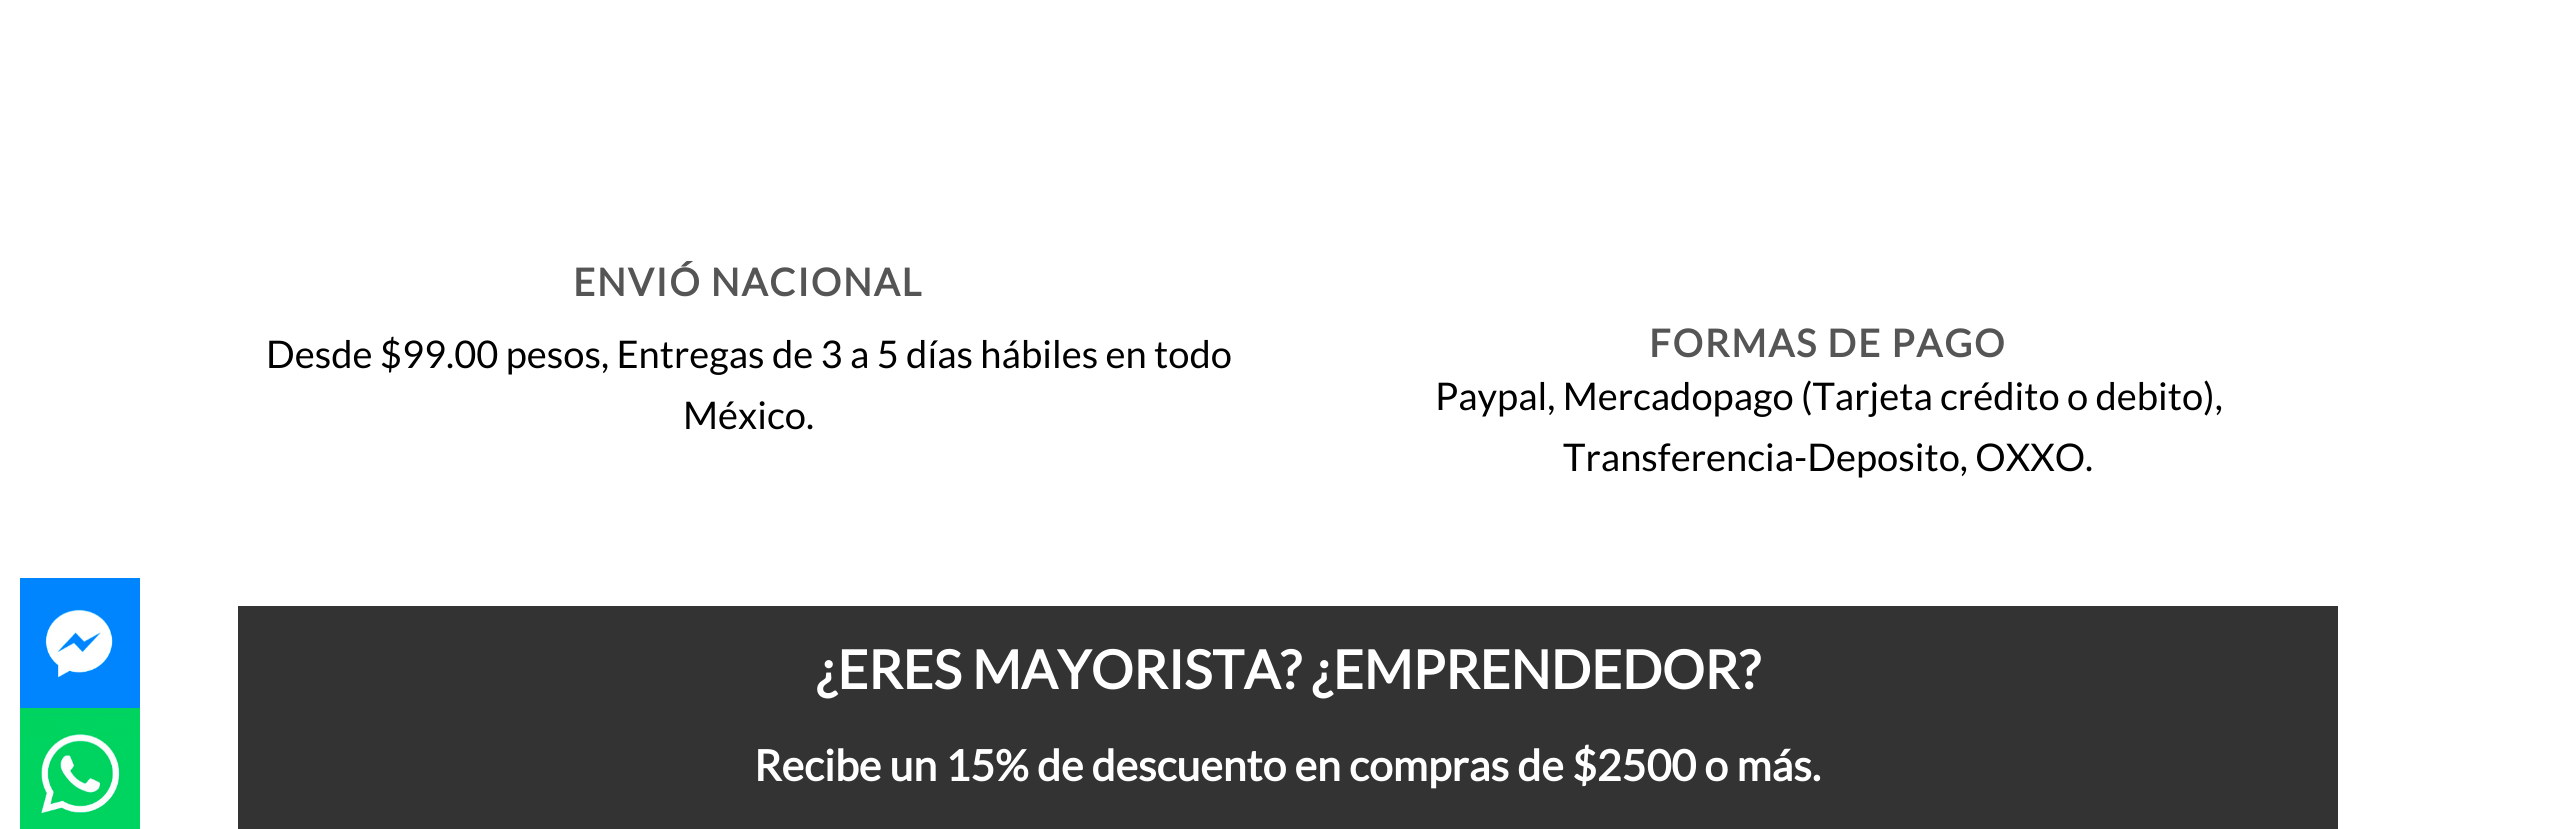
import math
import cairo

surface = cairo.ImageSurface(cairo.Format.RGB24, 2575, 829)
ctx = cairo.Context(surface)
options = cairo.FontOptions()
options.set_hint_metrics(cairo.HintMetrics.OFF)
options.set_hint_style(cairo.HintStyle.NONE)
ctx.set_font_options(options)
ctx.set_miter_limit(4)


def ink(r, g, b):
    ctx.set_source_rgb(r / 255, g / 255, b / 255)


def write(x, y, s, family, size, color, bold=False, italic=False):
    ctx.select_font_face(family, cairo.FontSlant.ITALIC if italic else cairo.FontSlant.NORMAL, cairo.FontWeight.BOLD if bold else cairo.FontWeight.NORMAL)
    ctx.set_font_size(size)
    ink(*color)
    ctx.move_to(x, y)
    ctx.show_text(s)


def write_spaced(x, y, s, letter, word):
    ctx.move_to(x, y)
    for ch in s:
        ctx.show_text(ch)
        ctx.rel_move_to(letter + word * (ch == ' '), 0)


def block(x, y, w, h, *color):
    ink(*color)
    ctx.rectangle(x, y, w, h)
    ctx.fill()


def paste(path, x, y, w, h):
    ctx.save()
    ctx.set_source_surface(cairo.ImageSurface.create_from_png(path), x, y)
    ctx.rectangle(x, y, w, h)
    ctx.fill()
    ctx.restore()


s1 = dict(family="Lato", size=38.1, color=(0, 0, 0))
s2 = dict(family="Lato", size=53.3, color=(255, 255, 255), bold=True)
s3 = dict(family="Lato", size=42.8, color=(255, 255, 255), bold=True)

ink(255, 255, 255)
ctx.paint()
paste("pic1.png", 20, 578, 120, 130)
paste("pic2.png", 20, 708, 120, 121)
ctx.select_font_face("Lato", cairo.FontSlant.NORMAL, cairo.FontWeight.BOLD)
ctx.set_font_size(38.1)
ink(85, 85, 85)
write_spaced(573, 296, "ENVIÓ NACIONAL", 1.9, 0)
write(266, 368, "Desde $99.00 pesos, Entregas de 3 a 5 días hábiles en todo", **s1)
write(683, 429, "México.", **s1)
ctx.select_font_face("Lato", cairo.FontSlant.NORMAL, cairo.FontWeight.BOLD)
ink(85, 85, 85)
write_spaced(1649, 357, "FORMAS DE PAGO", 1.9, 0)
write(1435, 410, "Paypal, Mercadopago (Tarjeta crédito o debito),", **s1)
write(1563, 471, "Transferencia-Deposito, OXXO.", **s1)
block(238, 606, 2100, 223, 51, 51, 51)
write(816, 689, "¿ERES MAYORISTA? ¿EMPRENDEDOR?", **s2)
write(754, 781, "Recibe un 15% de descuento en compras de $2500 o más.", **s3)
surface.write_to_png("screenshot.png")
